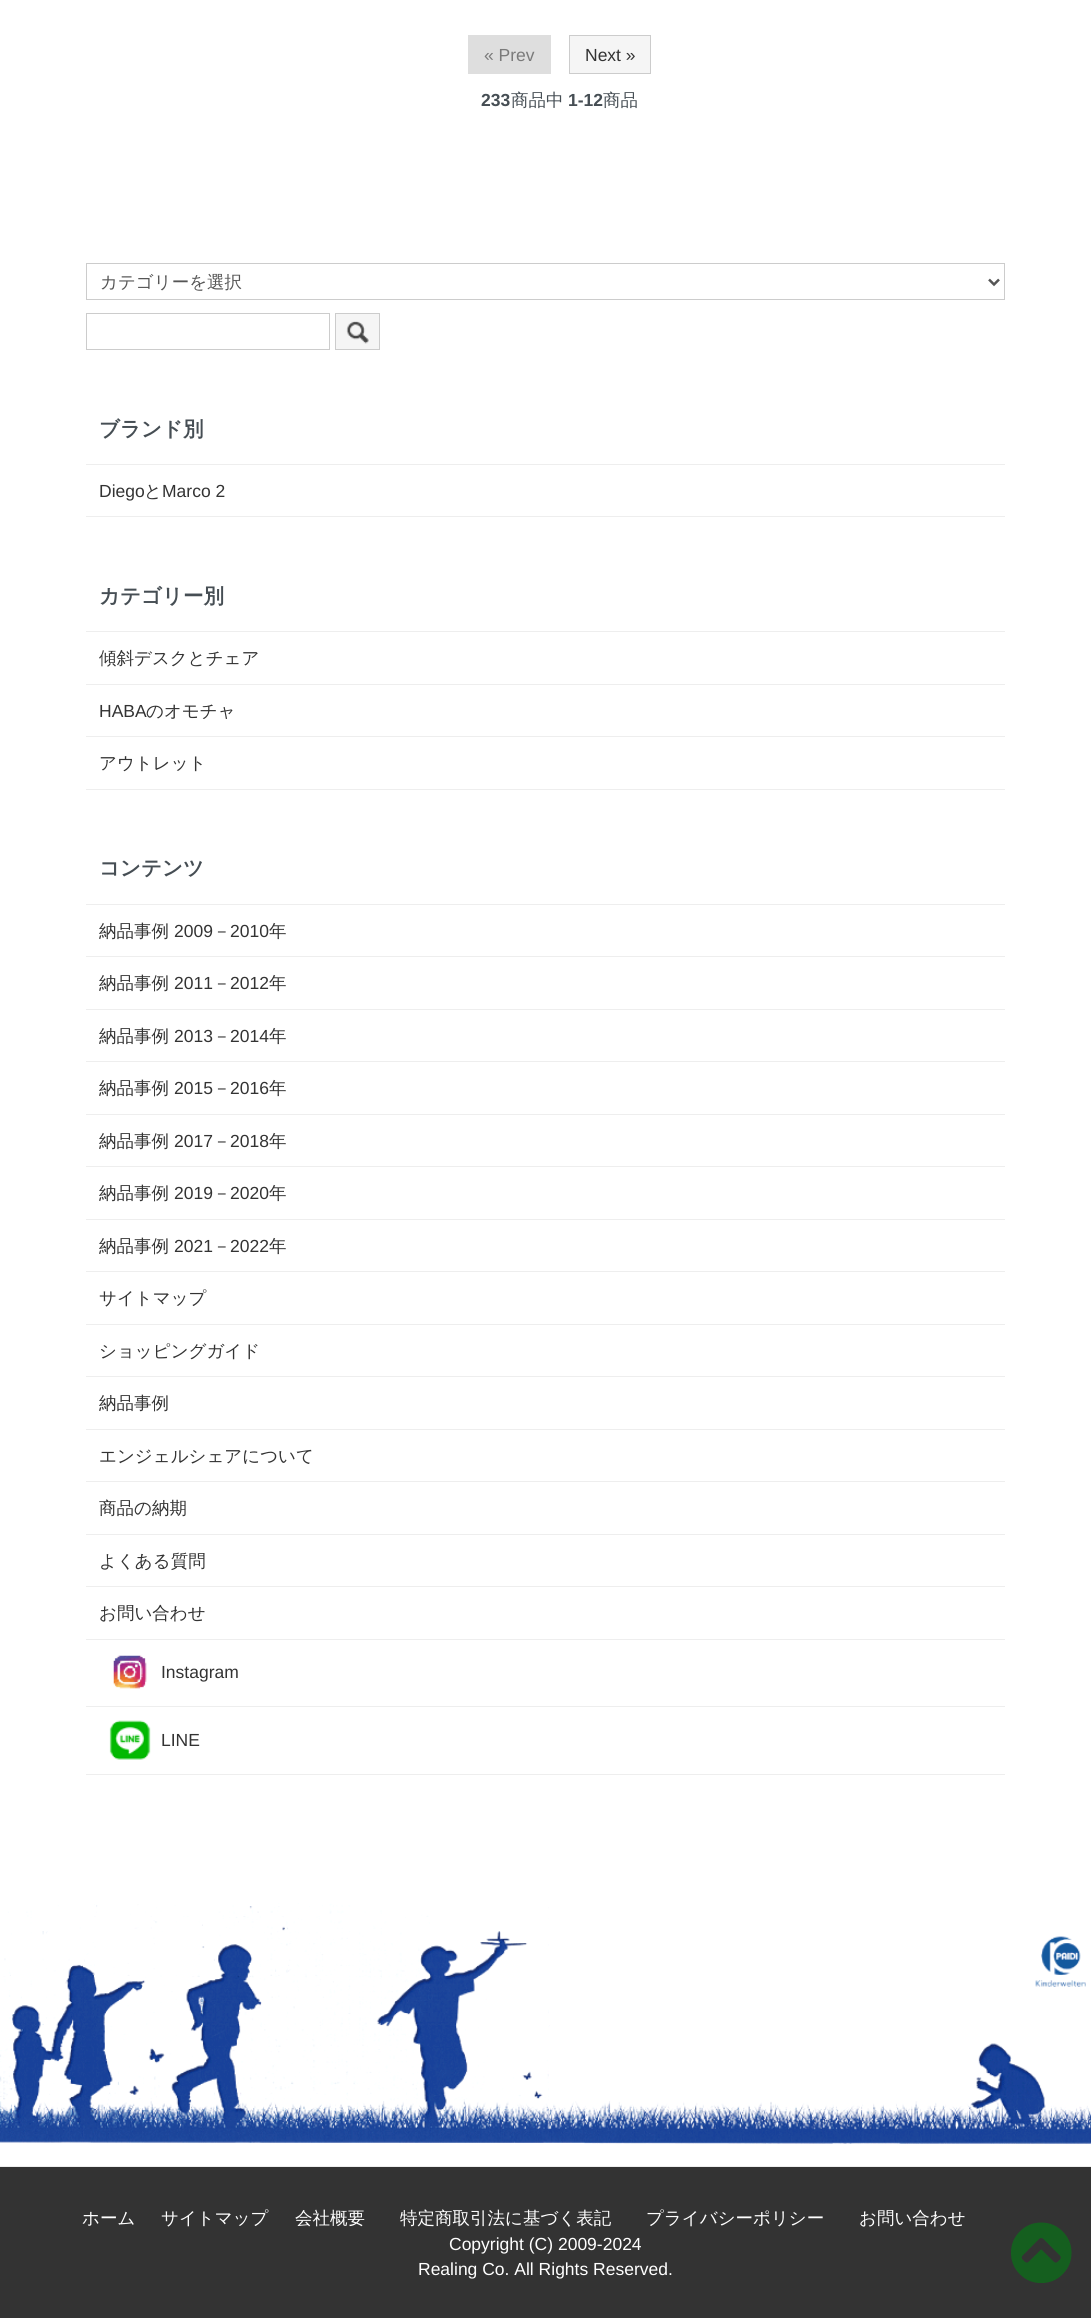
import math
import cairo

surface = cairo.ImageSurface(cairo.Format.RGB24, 1091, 2318)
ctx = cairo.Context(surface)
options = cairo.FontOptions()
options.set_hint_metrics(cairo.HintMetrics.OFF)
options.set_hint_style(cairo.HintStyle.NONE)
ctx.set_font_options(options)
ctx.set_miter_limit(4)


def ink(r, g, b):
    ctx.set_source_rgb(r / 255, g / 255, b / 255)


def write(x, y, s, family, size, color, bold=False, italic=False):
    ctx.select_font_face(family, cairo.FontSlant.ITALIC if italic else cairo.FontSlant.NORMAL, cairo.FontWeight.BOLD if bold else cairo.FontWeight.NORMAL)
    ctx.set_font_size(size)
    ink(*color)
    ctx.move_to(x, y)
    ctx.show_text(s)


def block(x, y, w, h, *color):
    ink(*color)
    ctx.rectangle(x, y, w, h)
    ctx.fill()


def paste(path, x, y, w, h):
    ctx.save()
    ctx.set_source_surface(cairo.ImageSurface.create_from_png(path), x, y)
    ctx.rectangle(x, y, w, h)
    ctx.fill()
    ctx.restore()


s1 = dict(family="Liberation Sans", size=17.5, color=(122, 122, 122))
s2 = dict(family="Liberation Sans", size=17.5, color=(51, 51, 51))
s3 = dict(family="Liberation Sans", size=17.5, color=(70, 78, 84), bold=True)
s4 = dict(family="WenQuanYi Zen Hei Medium", size=17.5, color=(70, 78, 84))
s5 = dict(family="WenQuanYi Zen Hei Medium", size=17.5, color=(85, 85, 85))
s6 = dict(family="WenQuanYi Zen Hei", size=20.5, color=(70, 78, 84), bold=True)
s7 = dict(family="WenQuanYi Zen Hei Medium", size=17.5, color=(51, 51, 51))
s8 = dict(family="WenQuanYi Zen Hei Medium", size=17.5, color=(255, 255, 255))
s9 = dict(family="Liberation Sans", size=17.5, color=(255, 255, 255))

ink(255, 255, 255)
ctx.paint()
block(468, 35, 83, 39, 222, 222, 222)
write(484, 61, "« Prev", **s1)
ink(245, 245, 245)
ctx.rectangle(569.5, 35.5, 81, 38)
ctx.fill_preserve()
ink(204, 204, 204)
ctx.set_line_width(1)
ctx.stroke()
write(585, 61, "Next »", **s2)
write(481, 106, "233", **s3)
write(511, 106, "商品中", **s4)
write(568, 106, "1-12", **s3)
write(603, 106, "商品", **s4)
ctx.rectangle(86.5, 263.5, 918, 36)
ink(204, 204, 204)
ctx.stroke()
ctx.new_path()
ctx.move_to(989, 279.5)
ctx.line_to(994, 284.5)
ctx.line_to(999, 279.5)
ink(85, 85, 85)
ctx.set_line_width(2.5)
ctx.stroke()
write(100, 288, "カテゴリーを選択", **s5)
ctx.rectangle(86.5, 313.5, 243, 36)
ink(204, 204, 204)
ctx.set_line_width(1)
ctx.stroke()
ink(245, 245, 245)
ctx.rectangle(335.5, 313.5, 44, 36)
ctx.fill_preserve()
ink(204, 204, 204)
ctx.stroke()
paste("pic1.png", 346, 321, 23, 23)
write(99, 436, "ブランド別", **s6)
block(86, 516, 919, 1, 238, 238, 238)
block(86, 464, 919, 1, 238, 238, 238)
write(99, 497, "Diego", **s2)
write(144, 497, "と", **s7)
write(162, 497, "Marco 2", **s2)
write(99, 603, "カテゴリー別", **s6)
block(86, 789, 919, 1, 238, 238, 238)
block(86, 631, 919, 1, 238, 238, 238)
write(99, 664, "傾斜デスクとチェア", **s7)
block(86, 684, 919, 1, 238, 238, 238)
write(99, 717, "HABA", **s2)
write(146, 717, "のオモチャ", **s7)
block(86, 736, 919, 1, 238, 238, 238)
write(99, 769, "アウトレット", **s7)
write(99, 875, "コンテンツ", **s6)
block(86, 1774, 919, 1, 238, 238, 238)
block(86, 904, 919, 1, 238, 238, 238)
write(99, 937, "納品事例", **s7)
write(174, 937, "2009", **s2)
write(213, 937, "－", **s7)
write(230, 937, "2010", **s2)
write(269, 937, "年", **s7)
block(86, 956, 919, 1, 238, 238, 238)
write(99, 989, "納品事例", **s7)
write(174, 989, "2011", **s2)
write(213, 989, "－", **s7)
write(230, 989, "2012", **s2)
write(269, 989, "年", **s7)
block(86, 1009, 919, 1, 238, 238, 238)
write(99, 1042, "納品事例", **s7)
write(174, 1042, "2013", **s2)
write(213, 1042, "－", **s7)
write(230, 1042, "2014", **s2)
write(269, 1042, "年", **s7)
block(86, 1061, 919, 1, 238, 238, 238)
write(99, 1094, "納品事例", **s7)
write(174, 1094, "2015", **s2)
write(213, 1094, "－", **s7)
write(230, 1094, "2016", **s2)
write(269, 1094, "年", **s7)
block(86, 1114, 919, 1, 238, 238, 238)
write(99, 1147, "納品事例", **s7)
write(174, 1147, "2017", **s2)
write(213, 1147, "－", **s7)
write(230, 1147, "2018", **s2)
write(269, 1147, "年", **s7)
block(86, 1166, 919, 1, 238, 238, 238)
write(99, 1199, "納品事例", **s7)
write(174, 1199, "2019", **s2)
write(213, 1199, "－", **s7)
write(230, 1199, "2020", **s2)
write(269, 1199, "年", **s7)
block(86, 1219, 919, 1, 238, 238, 238)
write(99, 1252, "納品事例", **s7)
write(174, 1252, "2021", **s2)
write(213, 1252, "－", **s7)
write(230, 1252, "2022", **s2)
write(269, 1252, "年", **s7)
block(86, 1271, 919, 1, 238, 238, 238)
write(99, 1304, "サイトマップ", **s7)
block(86, 1324, 919, 1, 238, 238, 238)
write(99, 1357, "ショッピングガイド", **s7)
block(86, 1376, 919, 1, 238, 238, 238)
write(99, 1409, "納品事例", **s7)
block(86, 1429, 919, 1, 238, 238, 238)
write(99, 1462, "エンジェルシェアについて", **s7)
block(86, 1481, 919, 1, 238, 238, 238)
write(99, 1514, "商品の納期", **s7)
block(86, 1534, 919, 1, 238, 238, 238)
write(99, 1567, "よくある質問", **s7)
block(86, 1586, 919, 1, 238, 238, 238)
write(99, 1619, "お問い合わせ", **s7)
block(86, 1639, 919, 1, 238, 238, 238)
paste("pic2.png", 113, 1655, 34, 34)
write(161, 1678, "Instagram", **s2)
block(86, 1706, 919, 1, 238, 238, 238)
paste("pic3.png", 109, 1720, 42, 40)
write(161, 1746, "LINE", **s2)
paste("pic4.png", 0, 1903, 1091, 241)
block(0, 2167, 1091, 151, 51, 51, 51)
block(0, 2166, 1091, 1, 238, 238, 238)
write(82, 2224, "ホーム", **s8)
write(161, 2224, "サイトマップ", **s8)
write(295, 2224, "会社概要", **s8)
write(400, 2224, "特定商取引法に基づく表記", **s8)
write(646, 2224, "プライバシーポリシー", **s8)
write(859, 2224, "お問い合わせ", **s8)
write(449, 2250, "Copyright (C) 2009-2024", **s9)
write(418, 2275, "Realing Co. All Rights Reserved.", **s9)
paste("pic5.png", 1011, 2222, 61, 61)
surface.write_to_png("screenshot.png")
